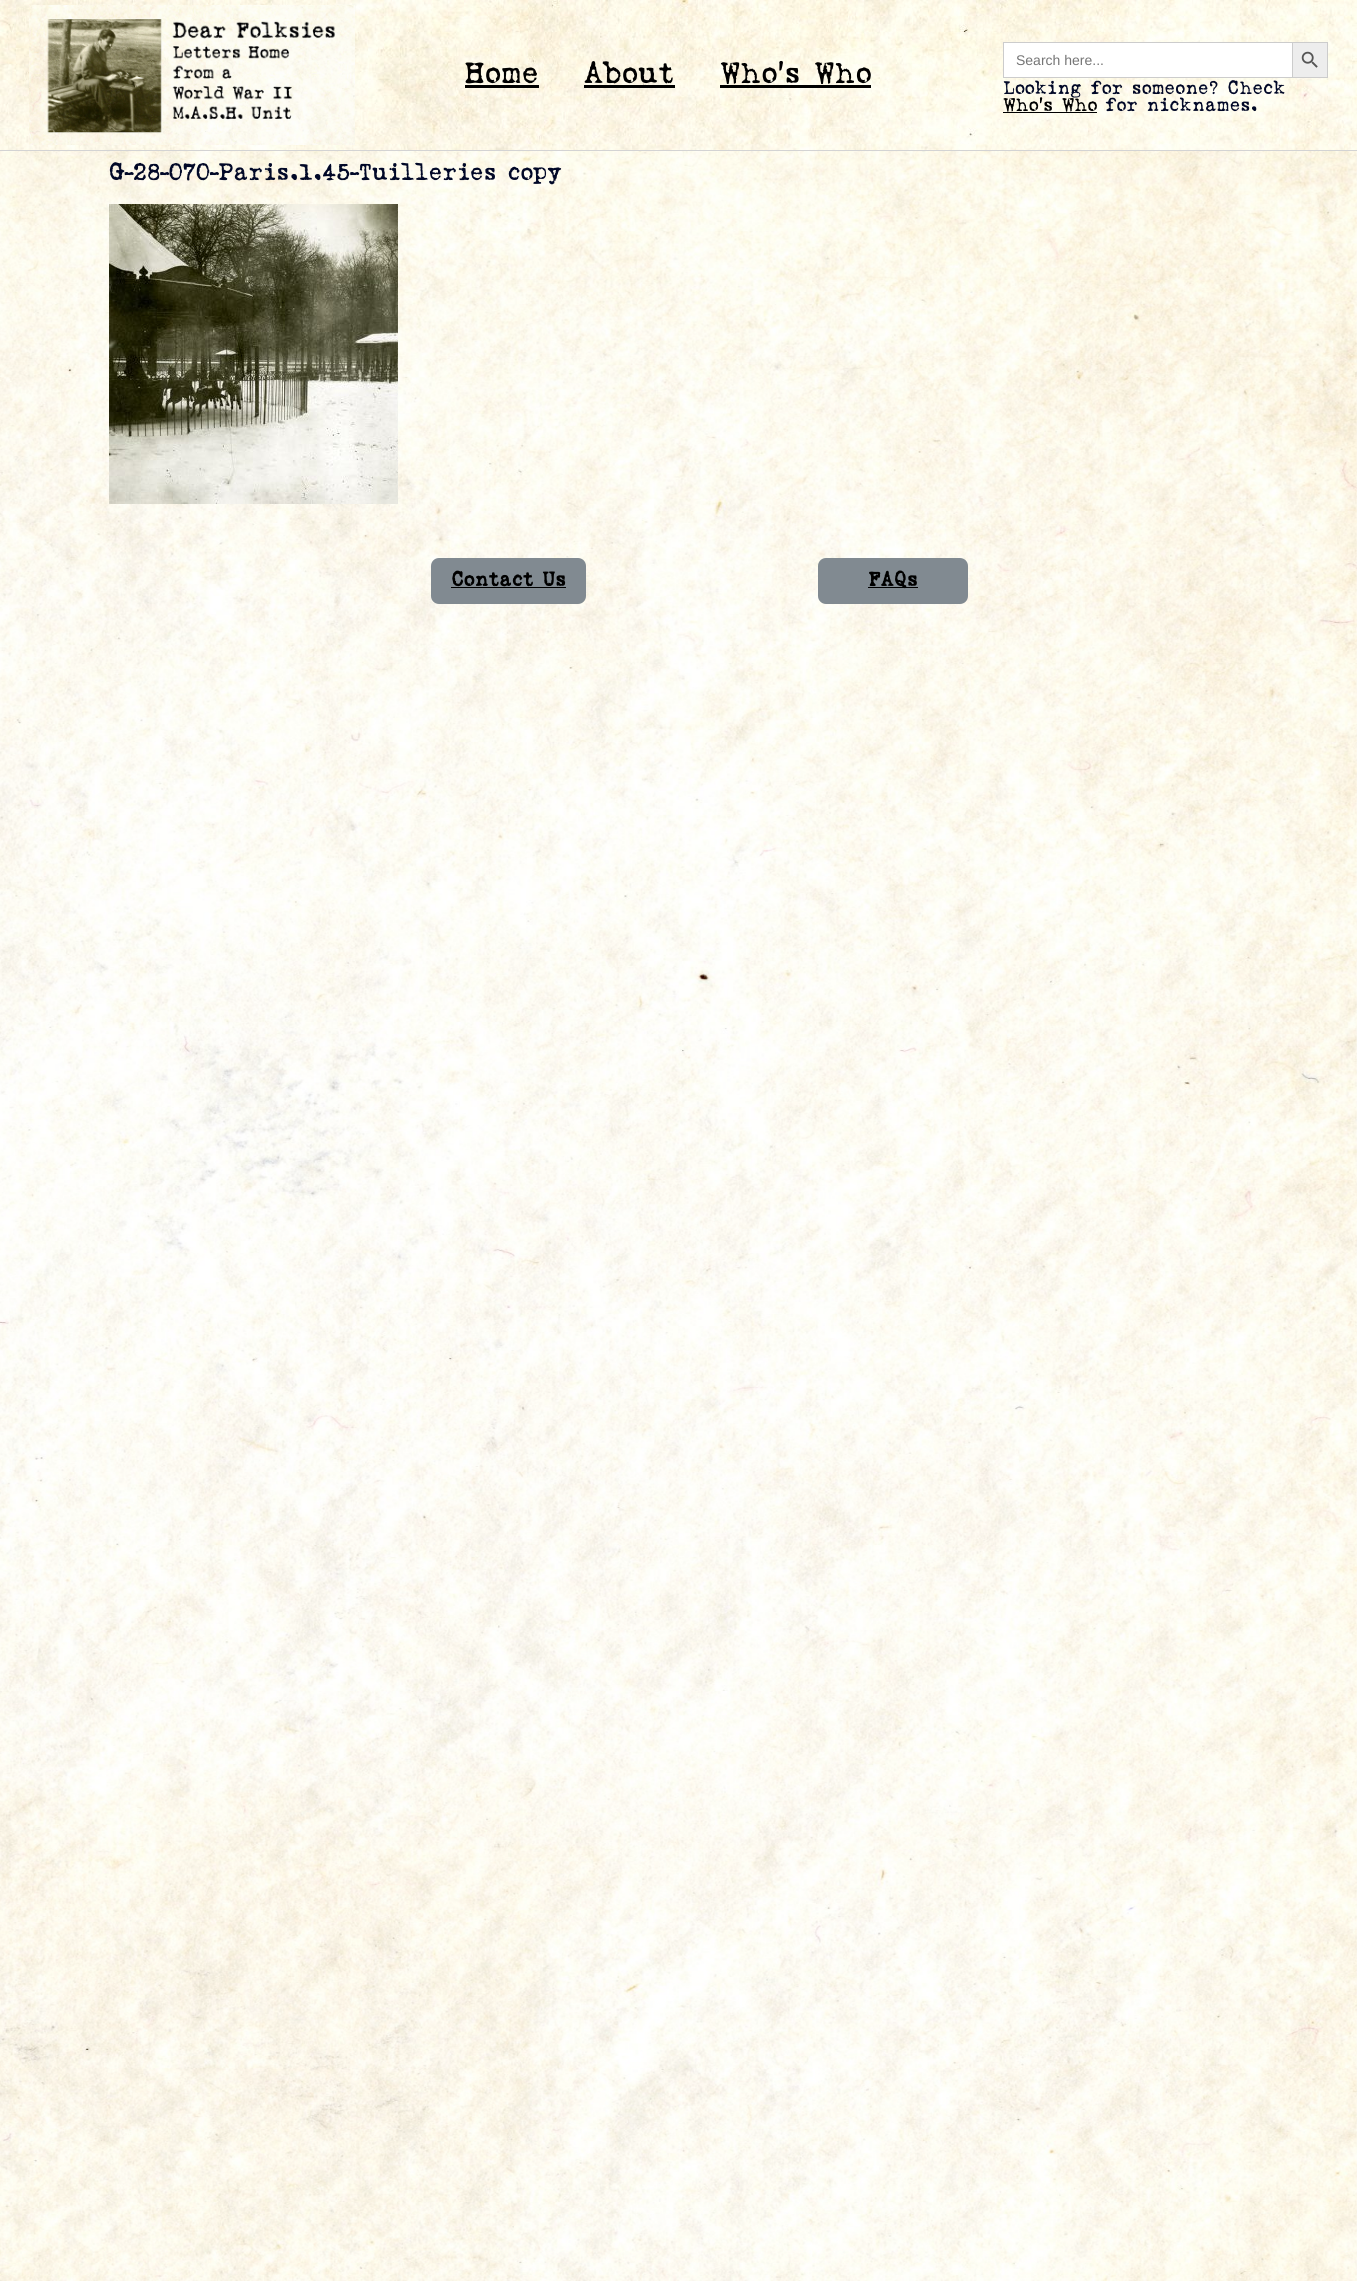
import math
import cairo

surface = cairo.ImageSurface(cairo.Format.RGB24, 1357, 2281)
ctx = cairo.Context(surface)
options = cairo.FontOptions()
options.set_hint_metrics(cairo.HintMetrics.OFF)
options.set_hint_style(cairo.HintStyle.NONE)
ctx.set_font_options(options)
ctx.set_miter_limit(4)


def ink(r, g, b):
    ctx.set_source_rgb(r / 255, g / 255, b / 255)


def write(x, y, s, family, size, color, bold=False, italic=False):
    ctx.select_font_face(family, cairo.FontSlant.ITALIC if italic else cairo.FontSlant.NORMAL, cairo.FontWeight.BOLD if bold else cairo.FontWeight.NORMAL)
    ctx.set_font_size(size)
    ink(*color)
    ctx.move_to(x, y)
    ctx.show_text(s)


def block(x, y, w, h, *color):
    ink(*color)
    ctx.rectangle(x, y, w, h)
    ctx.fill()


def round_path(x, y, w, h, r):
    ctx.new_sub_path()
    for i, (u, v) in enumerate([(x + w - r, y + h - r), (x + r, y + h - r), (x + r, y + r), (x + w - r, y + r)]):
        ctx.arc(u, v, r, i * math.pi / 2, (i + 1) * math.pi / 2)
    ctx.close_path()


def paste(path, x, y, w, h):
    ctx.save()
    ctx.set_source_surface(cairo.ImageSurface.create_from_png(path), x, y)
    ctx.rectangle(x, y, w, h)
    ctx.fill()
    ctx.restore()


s1 = dict(family="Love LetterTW", size=30, color=(0, 0, 0))
s2 = dict(family="Liberation Sans", size=14, color=(117, 117, 117))
s3 = dict(family="Love LetterTW", size=18.7, color=(1, 8, 39))
s4 = dict(family="Love LetterTW", size=18.7, color=(0, 0, 0))
s5 = dict(family="Love LetterTW", size=24, color=(1, 8, 39))
s6 = dict(family="Love LetterTW", size=20, color=(0, 0, 0), bold=True)

ink(255, 255, 255)
ctx.paint()
paste("pic1.png", 0, 151, 1357, 2130)
paste("pic2.png", 0, 0, 1357, 150)
block(0, 150, 1357, 1, 211, 211, 211)
paste("pic3.png", 29, 5, 326, 140)
write(465, 83, "Home", **s1)
block(465, 85, 74, 3, 0, 0, 0)
write(584, 83, "About", **s1)
block(584, 85, 91, 3, 0, 0, 0)
write(720, 83, "Who’s Who", **s1)
block(720, 85, 151, 3, 0, 0, 0)
block(1004, 43, 288, 34, 255, 255, 255)
block(1003, 42, 289, 1, 204, 204, 204)
block(1003, 77, 289, 1, 204, 204, 204)
block(1003, 42, 1, 36, 204, 204, 204)
write(1016, 65, "Search here...", **s2)
ink(237, 237, 237)
ctx.rectangle(1292.5, 42.5, 35, 35)
ctx.fill_preserve()
ink(204, 204, 204)
ctx.set_line_width(1)
ctx.stroke()
paste("pic4.png", 1301, 51, 17, 17)
write(1003, 94, "Looking for someone? Check", **s3)
write(1003, 111, "Who’s Who", **s4)
block(1003, 112, 94, 1, 0, 0, 0)
write(1105, 111, "for nicknames.", **s3)
write(109, 180, "G-28-070-Paris.1.45-Tuilleries copy", **s5)
paste("pic5.png", 109, 204, 289, 300)
ink(129, 138, 145)
round_path(431, 558, 155, 46, 8)
ctx.fill()
write(451, 586, "Contact Us", **s6)
block(451, 587, 115, 1, 0, 0, 0)
ink(129, 138, 145)
round_path(818, 558, 150, 46, 8)
ctx.fill()
block(868, 587, 50, 1, 0, 0, 0)
write(868, 586, "FAQs", **s6)
surface.write_to_png("screenshot.png")
